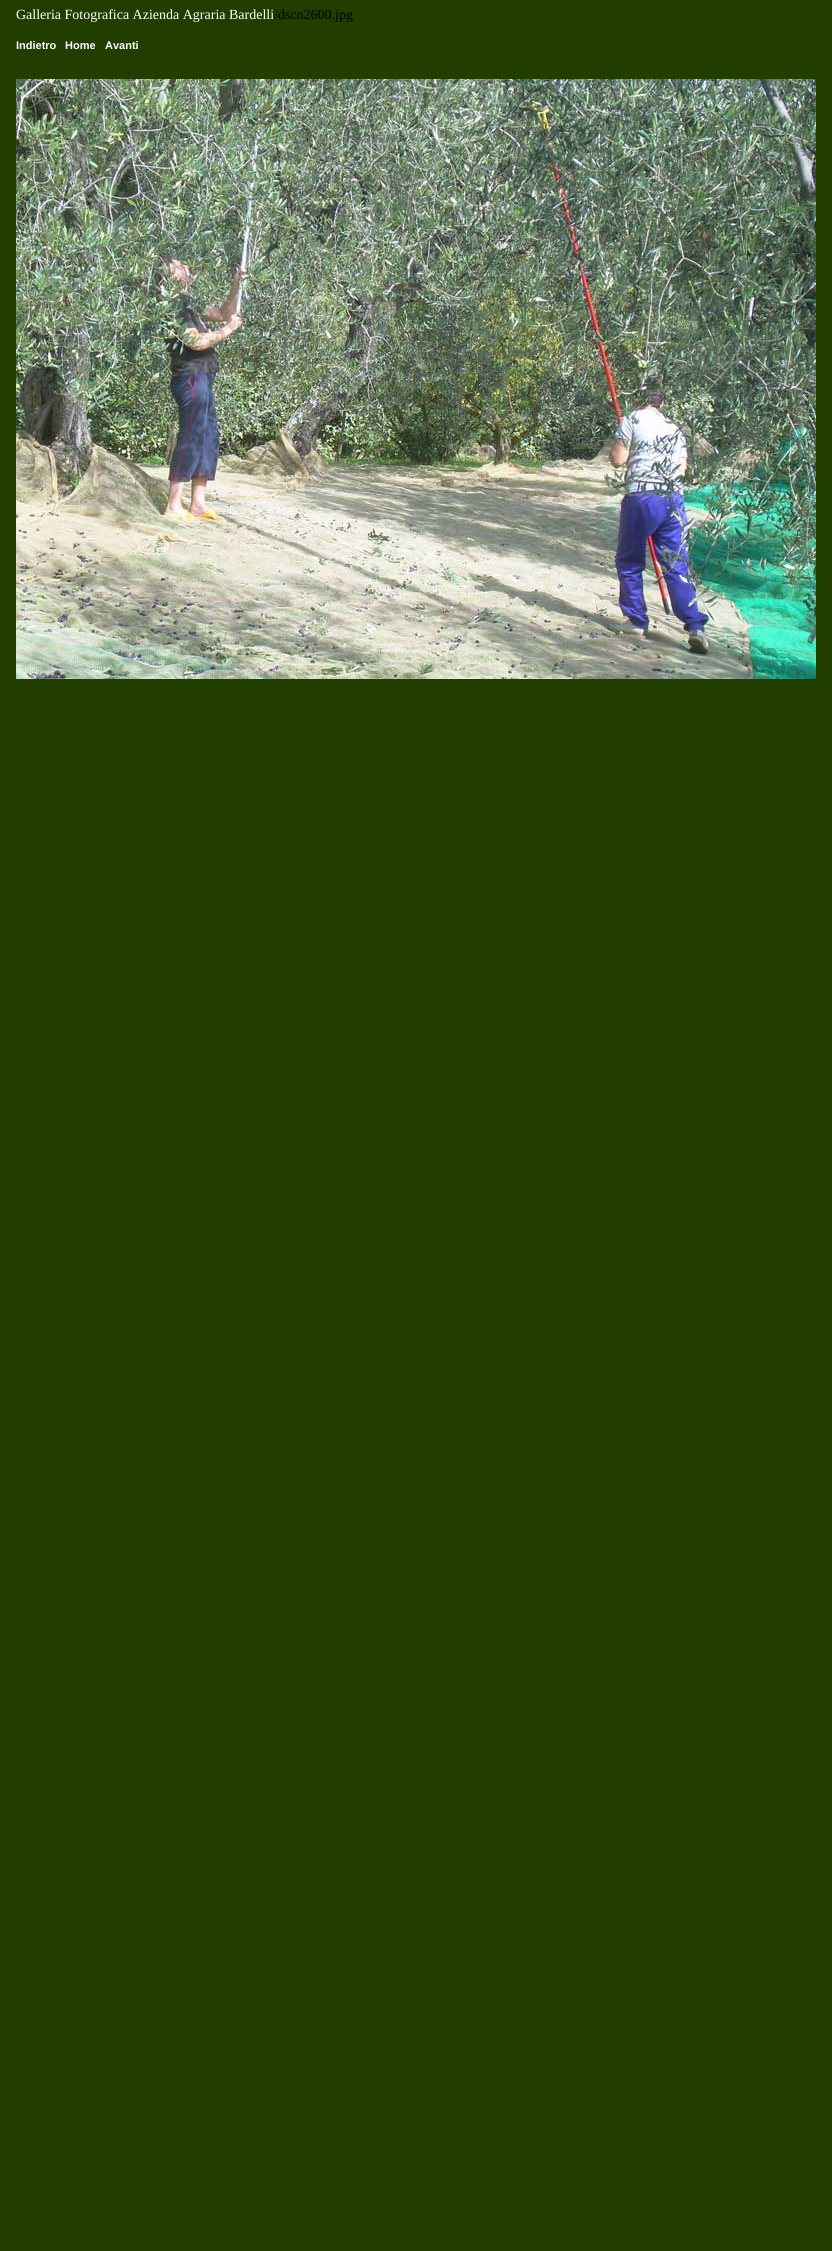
import math
import cairo

surface = cairo.ImageSurface(cairo.Format.RGB24, 832, 2251)
ctx = cairo.Context(surface)
options = cairo.FontOptions()
options.set_hint_metrics(cairo.HintMetrics.OFF)
options.set_hint_style(cairo.HintStyle.NONE)
ctx.set_font_options(options)
ctx.set_miter_limit(4)


def ink(r, g, b):
    ctx.set_source_rgb(r / 255, g / 255, b / 255)


def write(x, y, s, family, size, color, bold=False, italic=False):
    ctx.select_font_face(family, cairo.FontSlant.ITALIC if italic else cairo.FontSlant.NORMAL, cairo.FontWeight.BOLD if bold else cairo.FontWeight.NORMAL)
    ctx.set_font_size(size)
    ink(*color)
    ctx.move_to(x, y)
    ctx.show_text(s)


def paste(path, x, y, w, h):
    ctx.save()
    ctx.set_source_surface(cairo.ImageSurface.create_from_png(path), x, y)
    ctx.rectangle(x, y, w, h)
    ctx.fill()
    ctx.restore()


s1 = dict(family="Liberation Serif", size=14, color=(255, 255, 255))
s2 = dict(family="Liberation Serif", size=14, color=(0, 0, 0))
s3 = dict(family="Liberation Sans", size=11, color=(255, 255, 255), bold=True)
s4 = dict(family="Liberation Sans", size=11, color=(51, 51, 51))

ink(33, 61, 0)
ctx.paint()
write(16, 19, "Galleria Fotografica Azienda Agraria Bardelli", **s1)
write(274, 19, "/dscn2600.jpg", **s2)
write(16, 49, "Indietro", **s3)
write(59, 49, "|", **s4)
write(65, 49, "Home", **s3)
write(99, 49, "|", **s4)
write(105, 49, "Avanti", **s3)
paste("pic1.png", 16, 79, 800, 600)
surface.write_to_png("screenshot.png")
